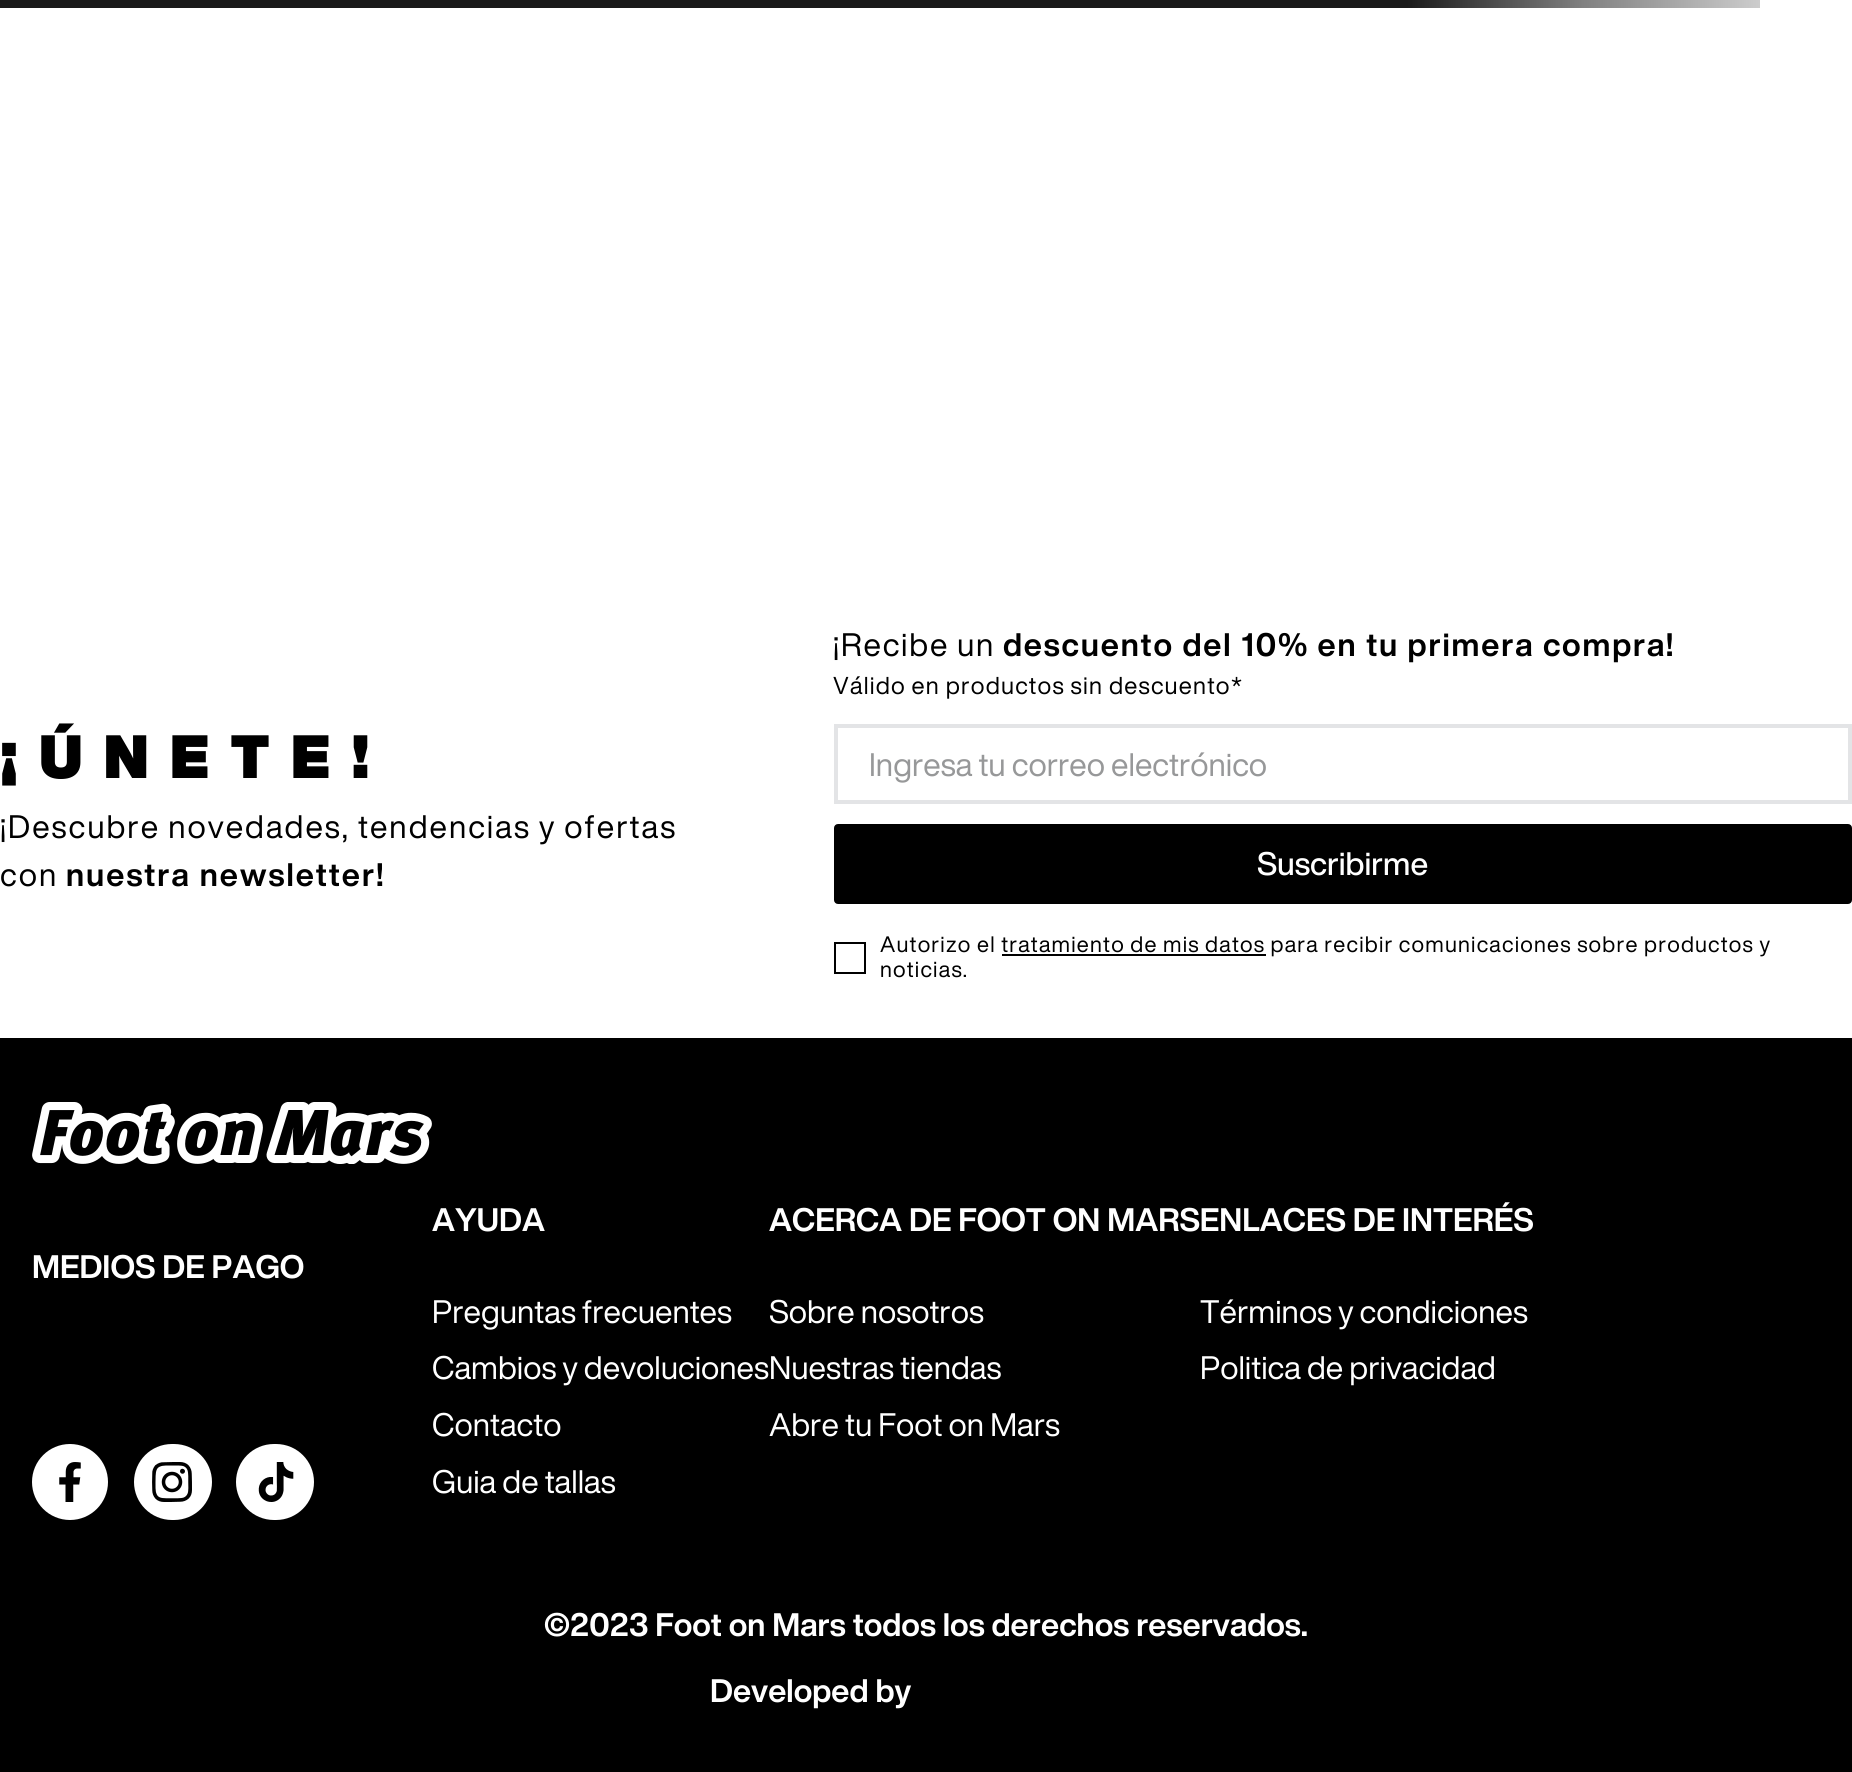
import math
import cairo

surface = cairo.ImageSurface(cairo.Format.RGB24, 1852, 1772)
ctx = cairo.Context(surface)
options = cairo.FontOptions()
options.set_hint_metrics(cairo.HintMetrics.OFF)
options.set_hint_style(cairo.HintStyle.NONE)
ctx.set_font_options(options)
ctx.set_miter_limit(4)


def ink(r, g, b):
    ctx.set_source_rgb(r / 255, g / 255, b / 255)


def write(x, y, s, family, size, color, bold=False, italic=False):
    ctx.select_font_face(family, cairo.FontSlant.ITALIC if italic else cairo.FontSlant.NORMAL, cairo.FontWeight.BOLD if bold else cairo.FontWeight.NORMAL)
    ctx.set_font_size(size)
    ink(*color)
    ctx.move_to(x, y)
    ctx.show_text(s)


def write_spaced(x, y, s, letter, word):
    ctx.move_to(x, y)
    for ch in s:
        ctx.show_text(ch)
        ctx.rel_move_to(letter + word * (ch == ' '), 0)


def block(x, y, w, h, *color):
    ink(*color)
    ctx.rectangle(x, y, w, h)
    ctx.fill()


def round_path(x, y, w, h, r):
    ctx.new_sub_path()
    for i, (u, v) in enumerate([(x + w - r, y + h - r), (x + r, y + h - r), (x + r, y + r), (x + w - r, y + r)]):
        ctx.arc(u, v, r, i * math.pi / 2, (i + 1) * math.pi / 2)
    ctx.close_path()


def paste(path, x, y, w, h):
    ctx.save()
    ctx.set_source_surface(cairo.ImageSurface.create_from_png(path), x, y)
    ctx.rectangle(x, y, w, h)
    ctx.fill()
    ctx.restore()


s1 = dict(family="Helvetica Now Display", size=32, color=(151, 152, 153))
s2 = dict(family="Helvetica Now Display Medium", size=32, color=(255, 255, 255))
s3 = dict(family="Helvetica Now Display", size=32, color=(255, 255, 255), bold=True)
s4 = dict(family="Helvetica Now Display", size=32, color=(255, 255, 255))

ink(255, 255, 255)
ctx.paint()
gradient = cairo.LinearGradient(0, 4, 1759, 4)
gradient.add_color_stop_rgba(0.8, 0.102, 0.102, 0.102, 1)
gradient.add_color_stop_rgba(0.9, 0.502, 0.502, 0.502, 1)
gradient.add_color_stop_rgba(1, 0.8, 0.8, 0.8, 1)
ctx.set_source(gradient)
ctx.rectangle(0, 0, 1760, 8)
ctx.fill()
block(0, 1038, 1852, 734, 0, 0, 0)
ctx.select_font_face("Helvetica Now Display Black")
ctx.set_font_size(60)
write_spaced(0, 778, "¡ÚNETE!", 21.5, 0)
ctx.select_font_face("Helvetica Now Display")
ctx.set_font_size(32)
write_spaced(0, 838, "¡Descubre novedades, tendencias y ofertas", 2, 0)
write_spaced(0, 886, "con", 2, 0)
ctx.select_font_face("Helvetica Now Display", cairo.FontSlant.NORMAL, cairo.FontWeight.BOLD)
write_spaced(66, 886, "nuestra newsletter!", 2, 0)
ctx.select_font_face("Helvetica Now Display")
write_spaced(833, 656, "¡Recibe un", 1.8, 0)
ctx.select_font_face("Helvetica Now Display", cairo.FontSlant.NORMAL, cairo.FontWeight.BOLD)
write_spaced(1003, 656, "descuento del 10% en tu primera compra!", 1.8, 0)
ctx.select_font_face("Helvetica Now Display")
ctx.set_font_size(24)
write_spaced(833, 694, "Válido en productos sin descuento*", 1.2, 0)
ctx.rectangle(836, 726, 1014, 76)
ink(227, 228, 230)
ctx.set_line_width(4)
ctx.stroke()
write(869, 776, "Ingresa tu correo electrónico", **s1)
ink(0, 0, 0)
round_path(836, 826, 1014, 76, 2)
ctx.fill_preserve()
ctx.stroke()
write(1257, 875, "Suscribirme", **s2)
ctx.rectangle(835, 943, 30, 30)
ink(0, 0, 0)
ctx.set_line_width(2)
ctx.stroke()
ctx.select_font_face("Helvetica Now Display")
ctx.set_font_size(22)
write_spaced(880, 952, "Autorizo el tratamiento de mis datos para recibir comunicaciones sobre productos y", 1.2, 0)
block(1002, 954, 264, 2, 0, 0, 0)
write_spaced(880, 977, "noticias.", 1.2, 0)
paste("pic1.png", 32, 1102, 400, 62)
write(32, 1278, "MEDIOS DE PAGO", **s3)
ctx.new_path()
ctx.arc(70, 1482, 38, 0, 2 * math.pi)
ctx.fill()
paste("pic2.png", 59, 1462, 22, 40)
round_path(134, 1444, 78, 76, 38)
ctx.fill()
paste("pic3.png", 152, 1462, 40, 40)
round_path(236, 1444, 78, 76, 38)
ctx.fill()
paste("pic4.png", 258, 1462, 36, 40)
write(432, 1231, "AYUDA", **s3)
write(432, 1323, "Preguntas frecuentes", **s4)
write(432, 1379, "Cambios y devolucionesNuestras tiendas", **s4)
write(432, 1436, "Contacto", **s4)
write(432, 1493, "Guia de tallas", **s4)
write(769, 1231, "ACERCA DE FOOT ON MARSENLACES DE INTERÉS", **s3)
write(769, 1323, "Sobre nosotros", **s4)
write(769, 1436, "Abre tu Foot on Mars", **s4)
write(1200, 1323, "Términos y condiciones", **s4)
write(1200, 1379, "Politica de privacidad", **s4)
write(544, 1636, "©2023 Foot on Mars todos los derechos reservados.", **s3)
write(710, 1702, "Developed by", **s3)
surface.write_to_png("screenshot.png")
